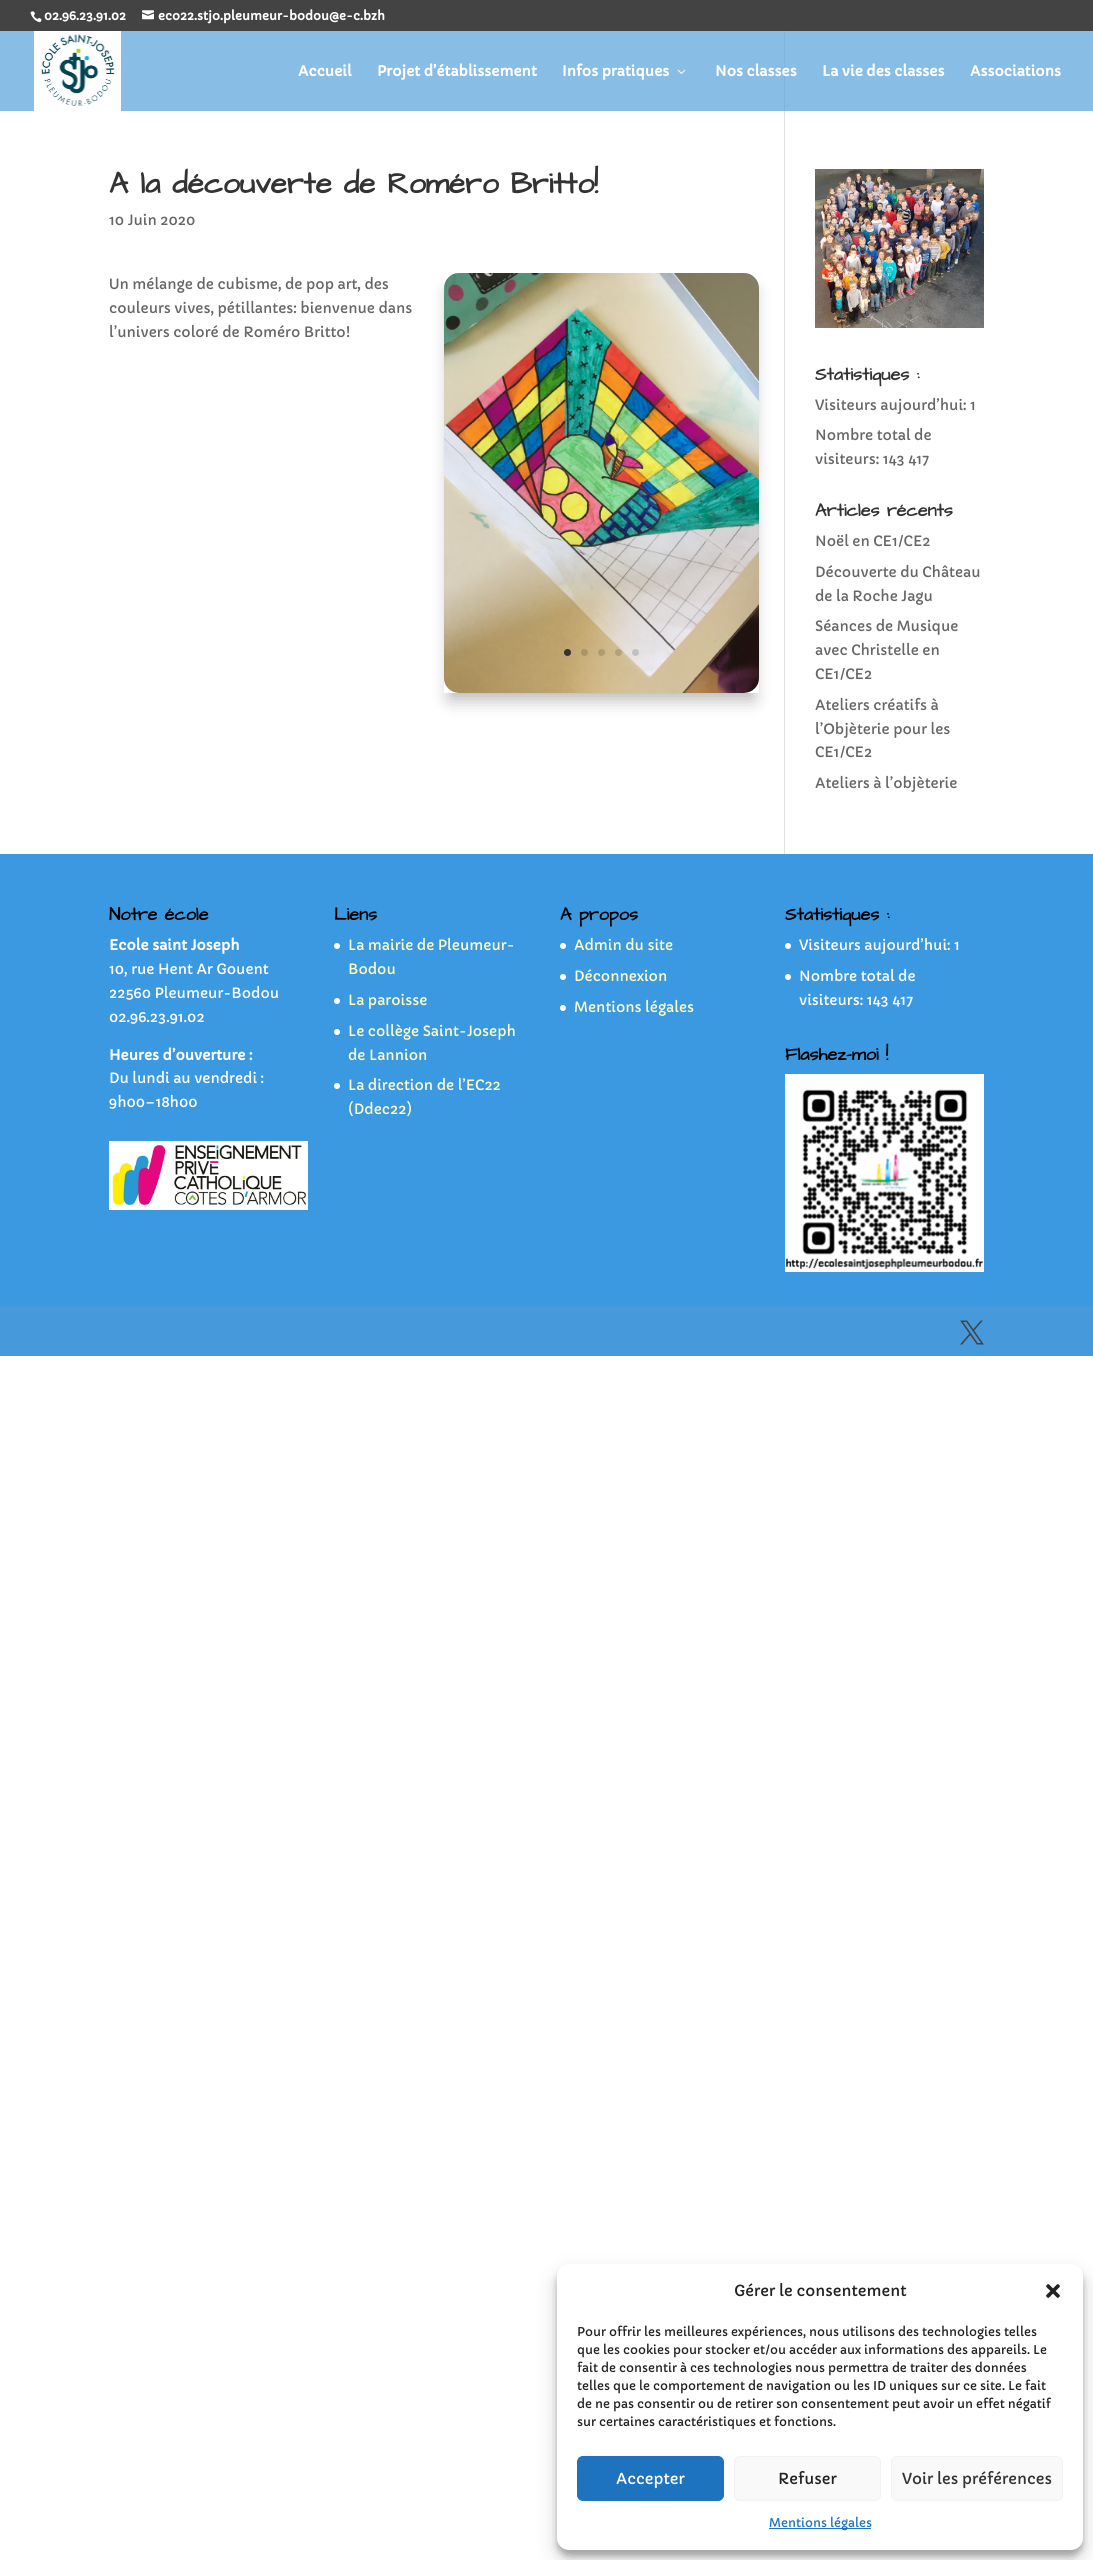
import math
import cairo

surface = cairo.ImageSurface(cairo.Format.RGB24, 1093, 2560)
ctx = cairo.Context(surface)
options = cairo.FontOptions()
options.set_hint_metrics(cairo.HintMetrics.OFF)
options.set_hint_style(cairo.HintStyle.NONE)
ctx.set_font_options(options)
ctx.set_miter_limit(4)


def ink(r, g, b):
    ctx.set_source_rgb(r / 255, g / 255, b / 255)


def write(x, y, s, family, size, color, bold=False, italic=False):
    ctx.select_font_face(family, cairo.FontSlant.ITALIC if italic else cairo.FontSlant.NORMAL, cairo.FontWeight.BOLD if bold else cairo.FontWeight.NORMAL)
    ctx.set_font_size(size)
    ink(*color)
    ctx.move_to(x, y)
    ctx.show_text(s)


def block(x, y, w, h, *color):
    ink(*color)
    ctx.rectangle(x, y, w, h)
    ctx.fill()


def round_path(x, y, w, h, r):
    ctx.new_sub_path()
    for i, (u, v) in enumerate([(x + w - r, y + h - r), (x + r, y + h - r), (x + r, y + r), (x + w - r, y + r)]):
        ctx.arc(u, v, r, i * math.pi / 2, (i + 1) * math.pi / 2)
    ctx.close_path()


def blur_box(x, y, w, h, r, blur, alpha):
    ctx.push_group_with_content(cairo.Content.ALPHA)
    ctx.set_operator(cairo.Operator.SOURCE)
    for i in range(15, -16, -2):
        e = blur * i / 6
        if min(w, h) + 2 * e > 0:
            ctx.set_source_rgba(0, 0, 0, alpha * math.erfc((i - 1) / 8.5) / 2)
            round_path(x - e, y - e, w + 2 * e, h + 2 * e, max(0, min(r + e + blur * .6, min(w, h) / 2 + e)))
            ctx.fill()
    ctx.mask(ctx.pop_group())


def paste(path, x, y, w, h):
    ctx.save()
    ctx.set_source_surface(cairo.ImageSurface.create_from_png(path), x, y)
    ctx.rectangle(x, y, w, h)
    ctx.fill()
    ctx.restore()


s1 = dict(family="Capriola", size=12, color=(255, 255, 255), bold=True)
s2 = dict(family="Capriola", size=14, color=(255, 255, 255), bold=True)
s3 = dict(family="Architects Daughter", size=30, color=(51, 51, 51), bold=True)
s4 = dict(family="Capriola", size=14, color=(102, 102, 102))
s5 = dict(family="Architects Daughter", size=18, color=(51, 51, 51), bold=True)
s6 = dict(family="Architects Daughter", size=18, color=(0, 0, 0), bold=True)
s7 = dict(family="Capriola", size=14, color=(255, 255, 255))
s8 = dict(family="Capriola", size=14, color=(255, 253, 198))
s9 = dict(family="Capriola", size=15, color=(34, 34, 34))
s10 = dict(family="Capriola", size=12, color=(34, 34, 34))
s11 = dict(family="Capriola", size=15, color=(255, 255, 255))
s12 = dict(family="Capriola", size=15, color=(51, 51, 51))
s13 = dict(family="Capriola", size=12, color=(30, 115, 190))

ink(255, 255, 255)
ctx.paint()
block(0, 31, 1093, 80, 136, 189, 229)
block(0, 0, 1093, 31, 67, 67, 67)
paste("pic1.png", 30, 11, 12, 12)
write(44, 20, "02.96.23.91.02", **s1)
paste("pic2.png", 142, 10, 12, 10)
write(158, 20, "eco22.stjo.pleumeur-bodou@e-c.bzh", **s1)
paste("pic3.png", 34, 31, 87, 80)
write(298, 76, "Accueil", **s2)
write(377, 76, "Projet d’établissement", **s2)
write(562, 76, "Infos pratiques", **s2)
paste("pic4.png", 677, 69, 9, 5)
block(784, 31, 1, 80, 126, 179, 219)
write(715, 76, "Nos classes", **s2)
write(822, 76, "La vie des classes", **s2)
write(970, 76, "Associations", **s2)
block(784, 111, 1, 743, 226, 226, 226)
write(109, 193, "A la découverte de Roméro Britto!", **s3)
write(109, 225, "10 Juin 2020", **s4)
write(109, 289, "Un mélange de cubisme, de pop art, des", **s4)
write(109, 313, "couleurs vives, pétillantes: bienvenue dans", **s4)
write(109, 337, "l’univers coloré de Roméro Britto!", **s4)
ctx.save()
ctx.set_fill_rule(cairo.FillRule.EVEN_ODD)
ctx.new_path()
ctx.move_to(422, 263)
ctx.line_to(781, 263)
ctx.line_to(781, 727)
ctx.line_to(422, 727)
ctx.close_path()
ctx.move_to(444, 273)
ctx.line_to(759, 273)
ctx.line_to(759, 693)
ctx.line_to(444, 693)
ctx.close_path()
ctx.clip()
ink(0, 0, 0)
blur_box(450, 291, 303, 408, 0, 9, 0.3)
ctx.restore()
paste("pic5.png", 444, 273, 315, 420)
ink(51, 51, 51)
ctx.arc(567.5, 652.5, 3.5, 0, 2 * math.pi)
ctx.fill()
ctx.set_source_rgba(0, 0, 0, 0.15)
ctx.arc(584.5, 652.5, 3.5, 0, 2 * math.pi)
ctx.fill()
ctx.arc(601.5, 652.5, 3.5, 0, 2 * math.pi)
ctx.fill()
ctx.arc(618.5, 652.5, 3.5, 0, 2 * math.pi)
ctx.fill()
ctx.arc(635.5, 652.5, 3.5, 0, 2 * math.pi)
ctx.fill()
paste("pic6.png", 815, 169, 169, 159)
write(815, 380, "Statistiques :", **s5)
write(815, 410, "Visiteurs aujourd’hui: 1", **s4)
write(815, 440, "Nombre total de", **s4)
write(815, 464, "visiteurs: 143 417", **s4)
write(815, 516, "Articles récents", **s5)
write(815, 546, "Noël en CE1/CE2", **s4)
write(815, 577, "Découverte du Château", **s4)
write(815, 601, "de la Roche Jagu", **s4)
write(815, 631, "Séances de Musique", **s4)
write(815, 655, "avec Christelle en", **s4)
write(815, 679, "CE1/CE2", **s4)
write(815, 710, "Ateliers créatifs à", **s4)
write(815, 734, "l’Objèterie pour les", **s4)
write(815, 757, "CE1/CE2", **s4)
write(815, 788, "Ateliers à l’objèterie", **s4)
block(0, 854, 1093, 452, 59, 153, 225)
write(109, 920, "Notre école", **s6)
write(109, 950, "Ecole saint Joseph", **s2)
write(109, 974, "10, rue Hent Ar Gouent", **s7)
write(109, 998, "22560 Pleumeur-Bodou", **s7)
write(109, 1022, "02.96.23.91.02", **s7)
write(109, 1060, "Heures d’ouverture :", **s2)
write(109, 1083, "Du lundi au vendredi :", **s7)
write(109, 1107, "9h00–18h00", **s7)
paste("pic7.png", 109, 1141, 199, 69)
write(334, 920, "Liens", **s6)
ink(255, 255, 255)
ctx.new_path()
ctx.arc(337, 946, 3, 0, 2 * math.pi)
ctx.fill()
write(348, 950, "La mairie de Pleumeur-", **s8)
write(348, 974, "Bodou", **s8)
ink(255, 255, 255)
ctx.new_path()
ctx.arc(337, 1001, 3, 0, 2 * math.pi)
ctx.fill()
write(348, 1005, "La paroisse", **s8)
ink(255, 255, 255)
ctx.new_path()
ctx.arc(337, 1032, 3, 0, 2 * math.pi)
ctx.fill()
write(348, 1036, "Le collège Saint-Joseph", **s8)
write(348, 1060, "de Lannion", **s8)
ink(255, 255, 255)
ctx.new_path()
ctx.arc(337, 1086, 3, 0, 2 * math.pi)
ctx.fill()
write(348, 1090, "La direction de l’EC22", **s8)
write(348, 1114, "(Ddec22)", **s8)
write(560, 920, "A propos", **s6)
ink(255, 255, 255)
ctx.new_path()
ctx.arc(563, 946, 3, 0, 2 * math.pi)
ctx.fill()
write(574, 950, "Admin du site", **s8)
ink(255, 255, 255)
ctx.new_path()
ctx.arc(563, 977, 3, 0, 2 * math.pi)
ctx.fill()
write(574, 981, "Déconnexion", **s8)
ink(255, 255, 255)
ctx.new_path()
ctx.arc(563, 1008, 3, 0, 2 * math.pi)
ctx.fill()
write(574, 1012, "Mentions légales", **s8)
write(785, 920, "Statistiques :", **s6)
ink(255, 255, 255)
ctx.new_path()
ctx.arc(788, 946, 3, 0, 2 * math.pi)
ctx.fill()
write(799, 950, "Visiteurs aujourd’hui: 1", **s7)
ctx.new_path()
ctx.arc(788, 977, 3, 0, 2 * math.pi)
ctx.fill()
write(799, 981, "Nombre total de", **s7)
write(799, 1005, "visiteurs: 143 417", **s7)
write(785, 1060, "Flashez-moi !", **s6)
paste("pic8.png", 785, 1074, 199, 198)
block(0, 1306, 1093, 50, 70, 154, 219)
paste("pic9.png", 960, 1320, 24, 25)
ink(0, 0, 0)
blur_box(557, 2270, 526, 286, 12, 3, 0.23)
blur_box(557, 2274, 526, 286, 12, 10, 0.19)
ink(255, 255, 255)
round_path(557, 2264, 526, 286, 12)
ctx.fill()
write(734, 2296, "Gérer le consentement", **s9)
paste("pic10.png", 1046, 2284, 14, 14)
write(577, 2336, "Pour offrir les meilleures expériences, nous utilisons des technologies telles", **s10)
write(577, 2354, "que les cookies pour stocker et/ou accéder aux informations des appareils. Le", **s10)
write(577, 2372, "fait de consentir à ces technologies nous permettra de traiter des données", **s10)
write(577, 2390, "telles que le comportement de navigation ou les ID uniques sur ce site. Le fait", **s10)
write(577, 2408, "de ne pas consentir ou de retirer son consentement peut avoir un effet négatif", **s10)
write(577, 2426, "sur certaines caractéristiques et fonctions.", **s10)
ink(30, 115, 190)
round_path(577.5, 2456.5, 146, 44, 5.5)
ctx.fill_preserve()
ctx.set_line_width(1)
ctx.stroke()
write(616, 2484, "Accepter", **s11)
ink(249, 249, 249)
round_path(734.5, 2456.5, 146, 44, 5.5)
ctx.fill_preserve()
ink(242, 242, 242)
ctx.stroke()
write(778, 2484, "Refuser", **s9)
ink(249, 249, 249)
round_path(891.5, 2456.5, 171, 44, 5.5)
ctx.fill_preserve()
ink(242, 242, 242)
ctx.stroke()
write(902, 2484, "Voir les préférences", **s12)
block(769, 2528, 102, 1, 30, 115, 190)
write(769, 2527, "Mentions légales", **s13)
surface.write_to_png("screenshot.png")
